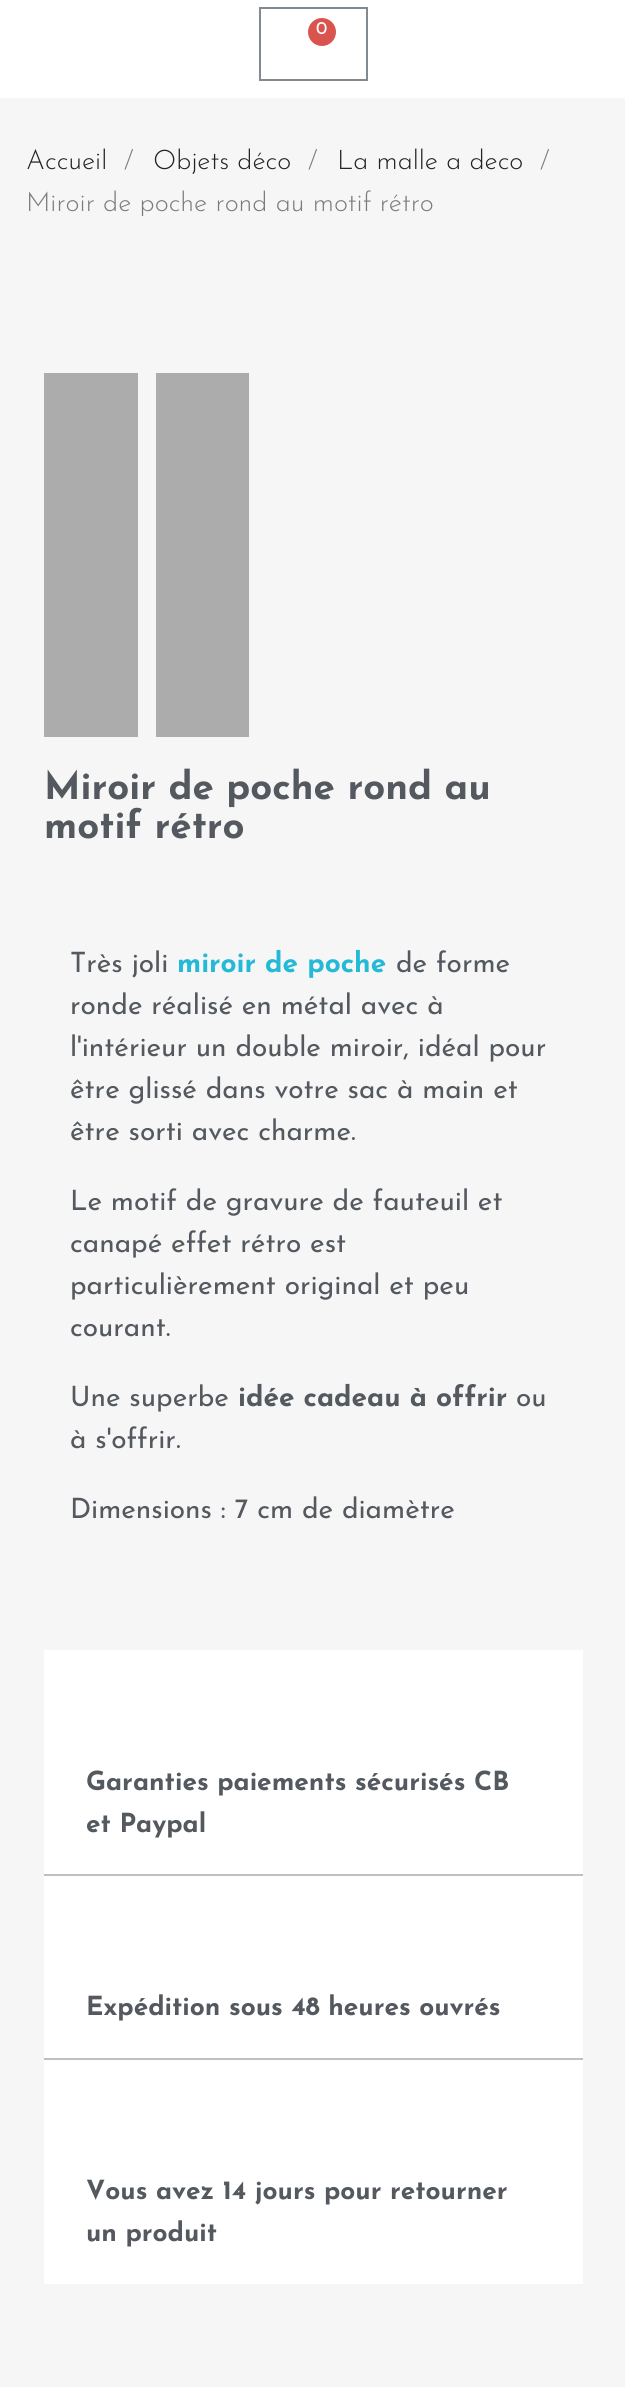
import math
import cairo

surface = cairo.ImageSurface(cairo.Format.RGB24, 625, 2387)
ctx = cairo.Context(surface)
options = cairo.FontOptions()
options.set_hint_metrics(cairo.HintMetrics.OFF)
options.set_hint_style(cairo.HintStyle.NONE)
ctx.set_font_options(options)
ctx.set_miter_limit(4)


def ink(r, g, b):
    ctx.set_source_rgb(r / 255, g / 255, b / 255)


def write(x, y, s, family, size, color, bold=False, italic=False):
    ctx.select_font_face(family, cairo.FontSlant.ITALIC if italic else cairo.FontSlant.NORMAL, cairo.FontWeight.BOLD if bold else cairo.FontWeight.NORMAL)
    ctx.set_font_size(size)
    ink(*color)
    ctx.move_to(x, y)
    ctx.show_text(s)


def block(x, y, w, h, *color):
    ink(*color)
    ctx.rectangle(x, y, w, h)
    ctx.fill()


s1 = dict(family="Josefin Sans", size=18, color=(255, 255, 255))
s2 = dict(family="Josefin Sans Light", size=26.9, color=(35, 35, 35))
s3 = dict(family="Josefin Sans Light", size=26.9, color=(122, 122, 122))
s4 = dict(family="Josefin Sans", size=38.5, color=(84, 89, 95), bold=True)
s5 = dict(family="Josefin Sans", size=28, color=(84, 89, 95))
s6 = dict(family="Josefin Sans", size=28, color=(36, 185, 215), bold=True)
s7 = dict(family="Josefin Sans", size=28, color=(84, 89, 95), bold=True)
s8 = dict(family="Josefin Sans", size=26.25, color=(84, 89, 95), bold=True)

ink(255, 255, 255)
ctx.paint()
ctx.rectangle(260, 8, 107, 72)
ink(129, 138, 145)
ctx.stroke()
ink(217, 83, 79)
ctx.arc(322, 32, 14, 0, 2 * math.pi)
ctx.fill()
write(316, 34, "0", **s1)
block(0, 98, 625, 2289, 246, 246, 246)
write(26, 169, "Accueil", **s2)
write(124, 169, "/", **s3)
write(153, 169, "Objets déco", **s2)
write(308, 169, "/", **s3)
write(337, 169, "La malle a deco", **s2)
write(540, 169, "/", **s3)
write(26, 211, "Miroir de poche rond au motif rétro", **s3)
block(44, 373, 94, 364, 172, 172, 172)
block(156, 373, 93, 364, 172, 172, 172)
write(44, 799, "Miroir de poche rond au", **s4)
write(44, 838, "motif rétro", **s4)
write(70, 972, "Très joli", **s5)
write(177, 972, "miroir de poche", **s6)
write(396, 972, "de forme", **s5)
write(70, 1014, "ronde réalisé en métal avec à", **s5)
write(70, 1056, "l'intérieur un double miroir, idéal pour", **s5)
write(70, 1098, "être glissé dans votre sac à main et", **s5)
write(70, 1140, "être sorti avec charme.", **s5)
write(70, 1210, "Le motif de gravure de fauteuil et", **s5)
write(70, 1252, "canapé effet rétro est", **s5)
write(70, 1294, "particulièrement original et peu", **s5)
write(70, 1336, "courant.", **s5)
write(70, 1406, "Une superbe", **s5)
write(238, 1406, "idée cadeau à offrir", **s7)
write(516, 1406, "ou", **s5)
write(70, 1448, "à s'offrir.", **s5)
write(70, 1518, "Dimensions : 7 cm de diamètre", **s5)
block(44, 1650, 539, 634, 255, 255, 255)
block(44, 1874, 539, 2, 191, 191, 191)
write(86, 1790, "Garanties paiements sécurisés CB", **s8)
write(86, 1832, "et Paypal", **s8)
block(44, 2058, 539, 2, 191, 191, 191)
write(86, 2015, "Expédition sous 48 heures ouvrés", **s8)
write(86, 2199, "Vous avez 14 jours pour retourner", **s8)
write(86, 2241, "un produit", **s8)
surface.write_to_png("screenshot.png")
